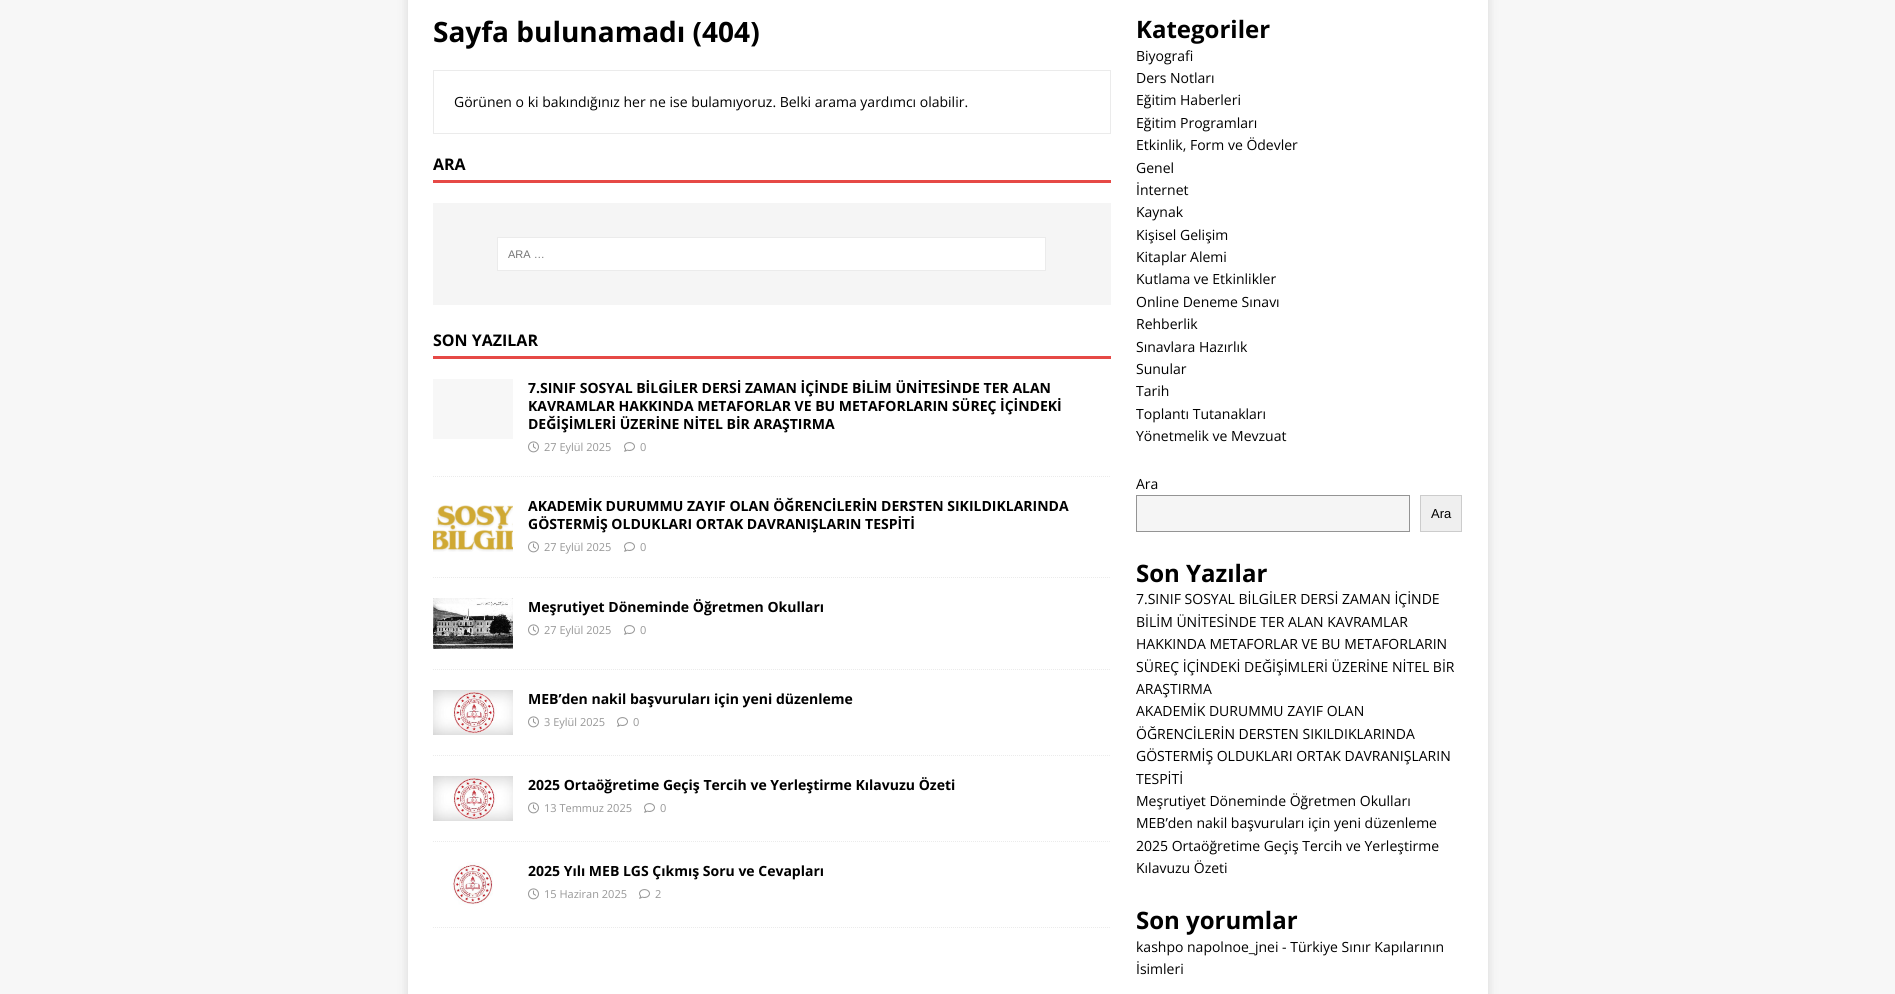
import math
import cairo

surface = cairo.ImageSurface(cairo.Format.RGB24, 1895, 994)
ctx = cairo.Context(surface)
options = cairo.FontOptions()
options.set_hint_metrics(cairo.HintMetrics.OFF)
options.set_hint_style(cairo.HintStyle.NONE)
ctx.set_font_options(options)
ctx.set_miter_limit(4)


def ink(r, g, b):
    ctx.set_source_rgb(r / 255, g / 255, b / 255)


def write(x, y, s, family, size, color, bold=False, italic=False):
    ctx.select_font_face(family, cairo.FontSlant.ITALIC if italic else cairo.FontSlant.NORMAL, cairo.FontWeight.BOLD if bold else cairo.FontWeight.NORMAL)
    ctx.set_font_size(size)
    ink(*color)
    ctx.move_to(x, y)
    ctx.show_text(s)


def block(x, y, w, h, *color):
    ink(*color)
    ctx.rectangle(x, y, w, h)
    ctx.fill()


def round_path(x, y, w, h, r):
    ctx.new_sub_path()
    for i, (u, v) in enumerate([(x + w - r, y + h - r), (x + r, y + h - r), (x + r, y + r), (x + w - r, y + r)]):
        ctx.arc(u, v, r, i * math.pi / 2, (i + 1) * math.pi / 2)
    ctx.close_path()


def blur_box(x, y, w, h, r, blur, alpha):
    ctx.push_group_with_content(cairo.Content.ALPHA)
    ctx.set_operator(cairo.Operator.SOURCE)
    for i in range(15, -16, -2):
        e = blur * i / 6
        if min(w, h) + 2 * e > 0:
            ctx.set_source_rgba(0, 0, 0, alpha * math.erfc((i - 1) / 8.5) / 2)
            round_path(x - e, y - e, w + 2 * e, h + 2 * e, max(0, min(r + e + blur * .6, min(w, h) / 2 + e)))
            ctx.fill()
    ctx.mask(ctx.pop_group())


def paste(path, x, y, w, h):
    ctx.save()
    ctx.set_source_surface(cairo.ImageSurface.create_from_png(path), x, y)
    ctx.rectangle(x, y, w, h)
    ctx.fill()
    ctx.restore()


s1 = dict(family="Open Sans", size=28, color=(0, 0, 0), bold=True)
s2 = dict(family="Open Sans", size=14, color=(0, 0, 0))
s3 = dict(family="Open Sans", size=16, color=(0, 0, 0), bold=True)
s4 = dict(family="Liberation Sans", size=11, color=(117, 117, 117))
s5 = dict(family="Open Sans", size=14, color=(0, 0, 0), bold=True)
s6 = dict(family="Open Sans", size=11, color=(151, 151, 151))
s7 = dict(family="Open Sans", size=24, color=(0, 0, 0), bold=True)
s8 = dict(family="Liberation Sans", size=13, color=(0, 0, 0))

ink(247, 247, 247)
ctx.paint()
ink(50, 50, 50)
blur_box(408, -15, 1080, 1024, 0, 5, 0.17)
block(408, 0, 1080, 994, 255, 255, 255)
write(433, 42, "Sayfa bulunamadı (404)", **s1)
ctx.rectangle(433.5, 70.5, 677, 63)
ink(235, 235, 235)
ctx.set_line_width(1)
ctx.stroke()
write(454, 107, "Görünen o ki bakındığınız her ne ise bulamıyoruz. Belki arama yardımcı olabilir.", **s2)
block(433, 180, 678, 3, 230, 73, 70)
write(433, 170, "ARA", **s3)
block(433, 203, 678, 102, 245, 245, 245)
ink(255, 255, 255)
ctx.rectangle(497.5, 237.5, 548, 33)
ctx.fill_preserve()
ink(235, 235, 235)
ctx.stroke()
write(508, 258, "ARA …", **s4)
block(433, 356, 678, 3, 230, 73, 70)
write(433, 346, "SON YAZILAR", **s3)
ctx.new_path()
ctx.move_to(433, 476.5)
ctx.line_to(1111, 476.5)
ink(235, 235, 235)
ctx.set_dash([1, 1])
ctx.stroke()
block(433, 379, 80, 60, 247, 247, 247)
write(528, 393, "7.SINIF SOSYAL BİLGİLER DERSİ ZAMAN İÇİNDE BİLİM ÜNİTESİNDE TER ALAN", **s5)
write(528, 411, "KAVRAMLAR HAKKINDA METAFORLAR VE BU METAFORLARIN SÜREÇ İÇİNDEKİ", **s5)
write(528, 429, "DEĞİŞİMLERİ ÜZERİNE NİTEL BİR ARAŞTIRMA", **s5)
paste("pic1.png", 528, 441, 11, 12)
write(544, 451, "27 Eylül 2025", **s6)
paste("pic2.png", 624, 442, 11, 10)
write(640, 451, "0", **s6)
ctx.new_path()
ctx.move_to(433, 577.5)
ctx.line_to(1111, 577.5)
ink(235, 235, 235)
ctx.stroke()
paste("pic3.png", 433, 505, 80, 47)
write(528, 511, "AKADEMİK DURUMMU ZAYIF OLAN ÖĞRENCİLERİN DERSTEN SIKILDIKLARINDA", **s5)
write(528, 529, "GÖSTERMİŞ OLDUKLARI ORTAK DAVRANIŞLARIN TESPİTİ", **s5)
paste("pic1.png", 528, 541, 11, 12)
write(544, 551, "27 Eylül 2025", **s6)
paste("pic2.png", 624, 542, 11, 10)
write(640, 551, "0", **s6)
ctx.new_path()
ctx.move_to(433, 669.5)
ctx.line_to(1111, 669.5)
ink(235, 235, 235)
ctx.stroke()
paste("pic4.png", 433, 598, 80, 51)
write(528, 612, "Meşrutiyet Döneminde Öğretmen Okulları", **s5)
paste("pic1.png", 528, 624, 11, 12)
write(544, 634, "27 Eylül 2025", **s6)
paste("pic2.png", 624, 625, 11, 10)
write(640, 634, "0", **s6)
ctx.new_path()
ctx.move_to(433, 755.5)
ctx.line_to(1111, 755.5)
ink(235, 235, 235)
ctx.stroke()
paste("pic5.png", 433, 690, 80, 45)
write(528, 704, "MEB’den nakil başvuruları için yeni düzenleme", **s5)
paste("pic1.png", 528, 716, 11, 12)
write(544, 726, "3 Eylül 2025", **s6)
paste("pic2.png", 617, 717, 11, 10)
write(633, 726, "0", **s6)
ctx.new_path()
ctx.move_to(433, 841.5)
ctx.line_to(1111, 841.5)
ink(235, 235, 235)
ctx.stroke()
paste("pic6.png", 433, 776, 80, 45)
write(528, 790, "2025 Ortaöğretime Geçiş Tercih ve Yerleştirme Kılavuzu Özeti", **s5)
paste("pic1.png", 528, 802, 11, 12)
write(544, 812, "13 Temmuz 2025", **s6)
paste("pic2.png", 644, 803, 11, 10)
write(660, 812, "0", **s6)
ctx.new_path()
ctx.move_to(433, 927.5)
ctx.line_to(1111, 927.5)
ink(235, 235, 235)
ctx.stroke()
paste("pic7.png", 450, 862, 43, 43)
write(528, 876, "2025 Yılı MEB LGS Çıkmış Soru ve Cevapları", **s5)
paste("pic1.png", 528, 888, 11, 12)
write(544, 898, "15 Haziran 2025", **s6)
paste("pic2.png", 639, 889, 11, 10)
write(655, 898, "2", **s6)
write(1136, 38, "Kategoriler", **s7)
write(1136, 61, "Biyografi", **s2)
write(1136, 83, "Ders Notları", **s2)
write(1136, 105, "Eğitim Haberleri", **s2)
write(1136, 128, "Eğitim Programları", **s2)
write(1136, 150, "Etkinlik, Form ve Ödevler", **s2)
write(1136, 173, "Genel", **s2)
write(1136, 195, "İnternet", **s2)
write(1136, 217, "Kaynak", **s2)
write(1136, 240, "Kişisel Gelişim", **s2)
write(1136, 262, "Kitaplar Alemi", **s2)
write(1136, 284, "Kutlama ve Etkinlikler", **s2)
write(1136, 307, "Online Deneme Sınavı", **s2)
write(1136, 329, "Rehberlik", **s2)
write(1136, 352, "Sınavlara Hazırlık", **s2)
write(1136, 374, "Sunular", **s2)
write(1136, 396, "Tarih", **s2)
write(1136, 419, "Toplantı Tutanakları", **s2)
write(1136, 441, "Yönetmelik ve Mevzuat", **s2)
write(1136, 489, "Ara", **s2)
ink(245, 245, 245)
ctx.rectangle(1136.5, 495.5, 273, 36)
ctx.fill_preserve()
ink(148, 148, 148)
ctx.set_dash([])
ctx.stroke()
ink(239, 239, 239)
ctx.rectangle(1420.5, 495.5, 41, 36)
ctx.fill_preserve()
ink(204, 204, 204)
ctx.stroke()
write(1431, 518, "Ara", **s8)
write(1136, 582, "Son Yazılar", **s7)
write(1136, 604, "7.SINIF SOSYAL BİLGİLER DERSİ ZAMAN İÇİNDE", **s2)
write(1136, 627, "BİLİM ÜNİTESİNDE TER ALAN KAVRAMLAR", **s2)
write(1136, 649, "HAKKINDA METAFORLAR VE BU METAFORLARIN", **s2)
write(1136, 672, "SÜREÇ İÇİNDEKİ DEĞİŞİMLERİ ÜZERİNE NİTEL BİR", **s2)
write(1136, 694, "ARAŞTIRMA", **s2)
write(1136, 716, "AKADEMİK DURUMMU ZAYIF OLAN", **s2)
write(1136, 739, "ÖĞRENCİLERİN DERSTEN SIKILDIKLARINDA", **s2)
write(1136, 761, "GÖSTERMİŞ OLDUKLARI ORTAK DAVRANIŞLARIN", **s2)
write(1136, 784, "TESPİTİ", **s2)
write(1136, 806, "Meşrutiyet Döneminde Öğretmen Okulları", **s2)
write(1136, 828, "MEB’den nakil başvuruları için yeni düzenleme", **s2)
write(1136, 851, "2025 Ortaöğretime Geçiş Tercih ve Yerleştirme", **s2)
write(1136, 873, "Kılavuzu Özeti", **s2)
write(1136, 929, "Son yorumlar", **s7)
write(1136, 952, "kashpo napolnoe_jnei - Türkiye Sınır Kapılarının", **s2)
write(1136, 974, "İsimleri", **s2)
surface.write_to_png("screenshot.png")
